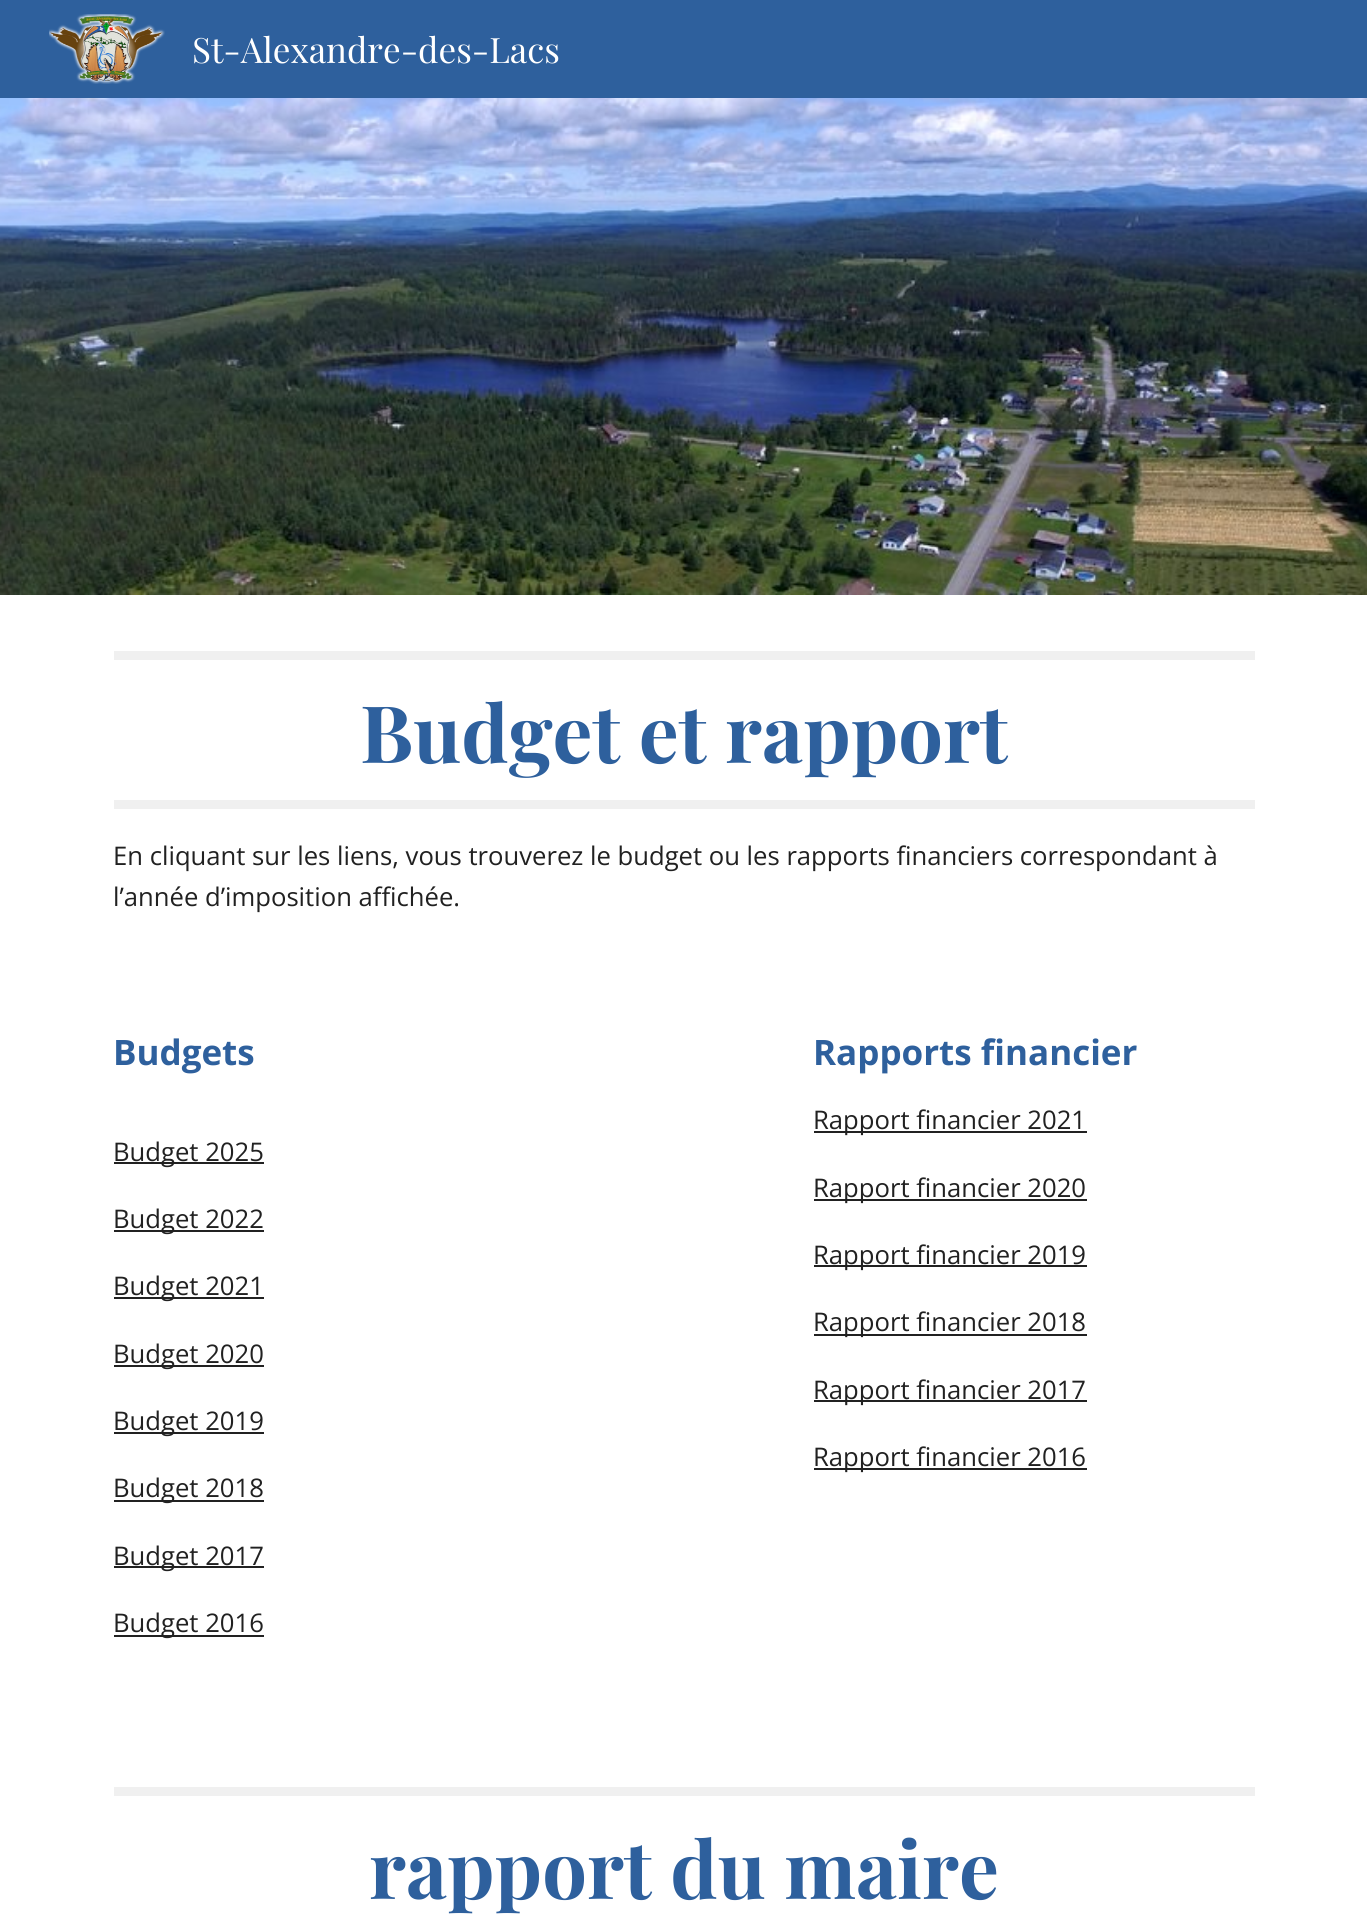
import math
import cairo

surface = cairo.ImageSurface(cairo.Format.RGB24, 1367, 1926)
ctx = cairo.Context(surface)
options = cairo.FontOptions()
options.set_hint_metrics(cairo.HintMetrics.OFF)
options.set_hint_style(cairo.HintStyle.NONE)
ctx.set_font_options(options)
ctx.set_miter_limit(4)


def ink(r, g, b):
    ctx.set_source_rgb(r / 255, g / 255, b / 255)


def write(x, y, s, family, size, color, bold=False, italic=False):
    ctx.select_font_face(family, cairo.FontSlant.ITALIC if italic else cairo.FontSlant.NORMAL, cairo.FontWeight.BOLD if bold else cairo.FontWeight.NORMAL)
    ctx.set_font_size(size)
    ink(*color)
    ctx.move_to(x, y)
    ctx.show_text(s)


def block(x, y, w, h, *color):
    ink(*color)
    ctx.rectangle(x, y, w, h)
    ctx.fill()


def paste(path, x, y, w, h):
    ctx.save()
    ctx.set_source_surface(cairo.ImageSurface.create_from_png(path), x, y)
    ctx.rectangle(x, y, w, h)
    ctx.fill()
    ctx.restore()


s1 = dict(family="Playfair Display", size=35, color=(255, 255, 255))
s2 = dict(family="Playfair Display", size=79.25, color=(46, 96, 157), bold=True)
s3 = dict(family="Open Sans", size=25.65, color=(33, 33, 33))
s4 = dict(family="Open Sans", size=35, color=(46, 96, 157), bold=True)

ink(255, 255, 255)
ctx.paint()
block(0, 0, 1367, 98, 46, 96, 157)
paste("pic1.png", 49, 14, 116, 70)
write(192, 63, "St-Alexandre-des-Lacs", **s1)
paste("pic2.png", 0, 98, 1367, 497)
block(114, 651, 1141, 9, 240, 240, 240)
block(114, 800, 1141, 9, 240, 240, 240)
write(360, 763, "Budget et rapport", **s2)
write(113, 865, "En cliquant sur les liens, vous trouverez le budget ou les rapports financiers correspondant à", **s3)
write(113, 906, "l’année d’imposition affichée.", **s3)
write(113, 1065, "Budgets", **s4)
block(114, 1162, 150, 2, 33, 33, 33)
write(113, 1161, "Budget 2025", **s3)
block(114, 1230, 150, 2, 33, 33, 33)
write(113, 1228, "Budget 2022", **s3)
block(114, 1297, 150, 2, 33, 33, 33)
write(113, 1295, "Budget 2021", **s3)
block(114, 1365, 150, 2, 33, 33, 33)
write(113, 1363, "Budget 2020", **s3)
block(114, 1432, 150, 2, 33, 33, 33)
write(113, 1430, "Budget 2019", **s3)
block(114, 1500, 150, 2, 33, 33, 33)
write(113, 1497, "Budget 2018", **s3)
block(114, 1566, 150, 2, 33, 33, 33)
write(113, 1565, "Budget 2017", **s3)
block(114, 1635, 150, 2, 33, 33, 33)
write(113, 1632, "Budget 2016", **s3)
write(813, 1065, "Rapports financier", **s4)
block(814, 1131, 273, 2, 33, 33, 33)
write(813, 1129, "Rapport financier 2021", **s3)
block(814, 1199, 273, 2, 33, 33, 33)
write(813, 1197, "Rapport financier 2020", **s3)
block(814, 1265, 273, 2, 33, 33, 33)
write(813, 1264, "Rapport financier 2019", **s3)
block(814, 1334, 273, 2, 33, 33, 33)
write(813, 1331, "Rapport financier 2018", **s3)
block(814, 1400, 273, 2, 33, 33, 33)
write(813, 1399, "Rapport financier 2017", **s3)
block(814, 1468, 273, 2, 33, 33, 33)
write(813, 1466, "Rapport financier 2016", **s3)
block(114, 1787, 1141, 9, 240, 240, 240)
write(369, 1899, "rapport du maire", **s2)
surface.write_to_png("screenshot.png")
